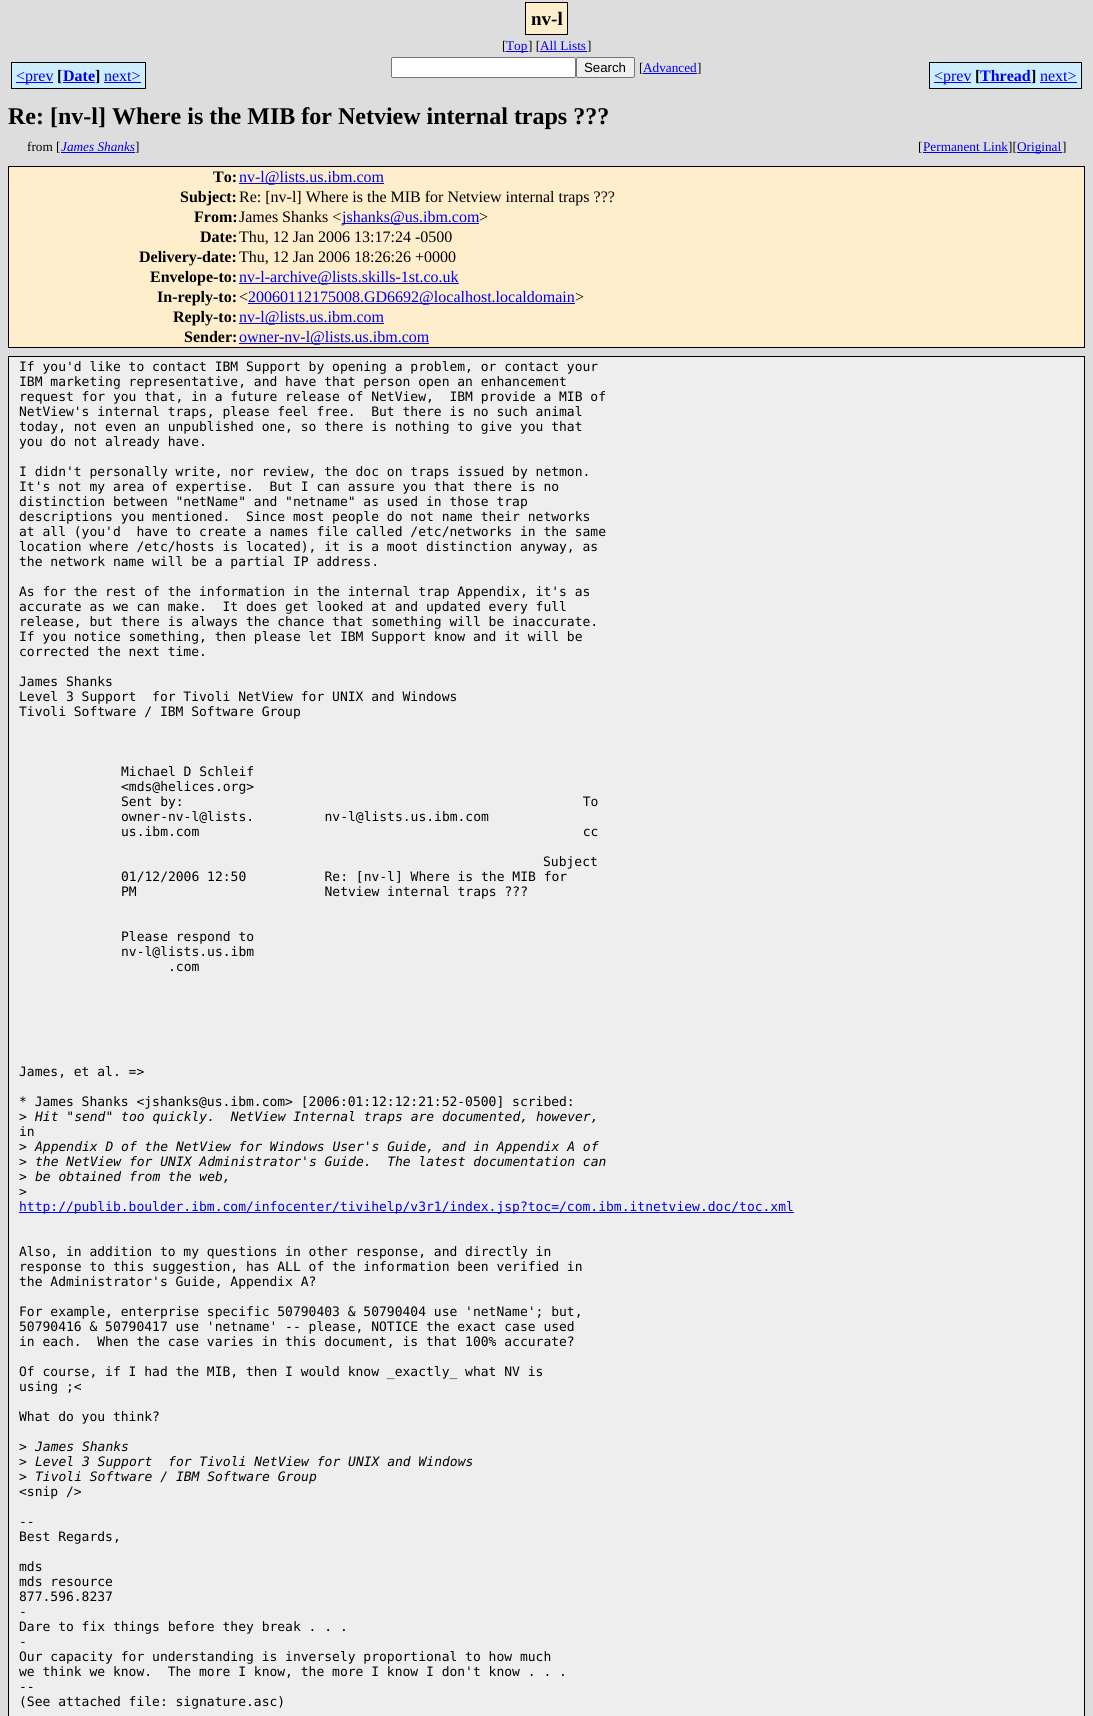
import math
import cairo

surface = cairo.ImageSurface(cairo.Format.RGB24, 1093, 1716)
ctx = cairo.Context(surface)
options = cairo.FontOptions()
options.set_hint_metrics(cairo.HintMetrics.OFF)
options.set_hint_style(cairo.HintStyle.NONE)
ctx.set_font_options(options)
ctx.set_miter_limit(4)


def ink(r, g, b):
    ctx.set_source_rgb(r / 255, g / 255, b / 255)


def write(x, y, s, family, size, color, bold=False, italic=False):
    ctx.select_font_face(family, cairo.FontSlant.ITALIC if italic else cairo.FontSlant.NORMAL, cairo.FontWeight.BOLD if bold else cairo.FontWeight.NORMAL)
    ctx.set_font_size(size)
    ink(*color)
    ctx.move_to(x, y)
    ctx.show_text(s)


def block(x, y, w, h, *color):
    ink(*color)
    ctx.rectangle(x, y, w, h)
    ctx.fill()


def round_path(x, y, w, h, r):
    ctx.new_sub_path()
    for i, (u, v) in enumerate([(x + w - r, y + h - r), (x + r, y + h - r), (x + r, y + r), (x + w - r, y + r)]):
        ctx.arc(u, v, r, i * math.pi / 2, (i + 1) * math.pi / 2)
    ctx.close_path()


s1 = dict(family="Liberation Serif", size=19, color=(0, 0, 0), bold=True)
s2 = dict(family="Liberation Serif", size=13.25, color=(0, 0, 0))
s3 = dict(family="Liberation Serif", size=13.25, color=(0, 0, 238))
s4 = dict(family="Liberation Serif", size=16, color=(0, 0, 238))
s5 = dict(family="Liberation Serif", size=16, color=(0, 0, 0), bold=True)
s6 = dict(family="Liberation Serif", size=16, color=(0, 0, 238), bold=True)
s7 = dict(family="Liberation Sans", size=13.25, color=(0, 0, 0))
s8 = dict(family="Liberation Serif", size=24, color=(0, 0, 0), bold=True)
s9 = dict(family="Liberation Serif", size=13.25, color=(0, 0, 238), italic=True)
s10 = dict(family="Liberation Serif", size=16, color=(0, 0, 0))
s11 = dict(family="DejaVu Sans Mono", size=13, color=(0, 0, 0))
s12 = dict(family="DejaVu Sans Mono", size=13, color=(0, 0, 0), italic=True)
s13 = dict(family="DejaVu Sans Mono", size=13, color=(0, 0, 238))

ink(221, 221, 221)
ctx.paint()
ink(255, 238, 204)
ctx.rectangle(525.5, 2.5, 42, 32)
ctx.fill_preserve()
ink(0, 0, 0)
ctx.set_line_width(1)
ctx.stroke()
write(531, 25, "nv-l", **s1)
write(502, 50, "[", **s2)
block(506, 51, 22, 1, 0, 0, 238)
write(506, 50, "Top", **s3)
write(528, 50, "] [", **s2)
write(540, 50, "All Lists", **s3)
write(587, 50, "]", **s2)
block(540, 51, 47, 1, 0, 0, 238)
block(12, 63, 41, 25, 204, 238, 255)
block(16, 82, 37, 1, 0, 0, 238)
block(53, 62, 10, 27, 204, 238, 255)
write(16, 81, "<prev", **s4)
block(11, 62, 42, 1, 0, 0, 0)
block(11, 88, 42, 1, 0, 0, 0)
block(11, 62, 1, 27, 0, 0, 0)
block(53, 88, 42, 1, 0, 0, 0)
write(57, 81, "[", **s5)
block(63, 63, 32, 25, 204, 238, 255)
block(63, 82, 32, 1, 0, 0, 238)
write(63, 81, "Date", **s6)
block(53, 62, 42, 1, 0, 0, 0)
block(95, 62, 9, 27, 204, 238, 255)
block(95, 62, 51, 1, 0, 0, 0)
write(95, 81, "]", **s5)
block(95, 88, 9, 1, 0, 0, 0)
block(104, 63, 41, 25, 204, 238, 255)
write(104, 81, "next>", **s4)
block(145, 62, 1, 27, 0, 0, 0)
block(104, 88, 42, 1, 0, 0, 0)
block(104, 82, 37, 1, 0, 0, 238)
ink(255, 255, 255)
round_path(391.5, 57.5, 184, 20, 1.5)
ctx.fill_preserve()
ink(118, 118, 118)
ctx.stroke()
ink(239, 239, 239)
round_path(576.5, 57.5, 58, 20, 1.5)
ctx.fill_preserve()
ink(118, 118, 118)
ctx.stroke()
write(584, 72, "Search", **s7)
write(639, 72, "[", **s2)
block(643, 73, 54, 1, 0, 0, 238)
write(643, 72, "Advanced", **s3)
write(697, 72, "]", **s2)
block(930, 63, 41, 25, 204, 238, 255)
block(934, 82, 37, 1, 0, 0, 238)
block(971, 62, 9, 27, 204, 238, 255)
write(934, 81, "<prev", **s4)
block(929, 62, 42, 1, 0, 0, 0)
block(929, 88, 42, 1, 0, 0, 0)
block(929, 62, 1, 27, 0, 0, 0)
block(971, 88, 60, 1, 0, 0, 0)
write(975, 81, "[", **s5)
block(980, 63, 51, 25, 204, 238, 255)
block(980, 82, 51, 1, 0, 0, 238)
write(980, 81, "Thread", **s6)
block(971, 62, 60, 1, 0, 0, 0)
block(1031, 62, 9, 27, 204, 238, 255)
block(1031, 62, 51, 1, 0, 0, 0)
write(1031, 81, "]", **s5)
block(1031, 88, 9, 1, 0, 0, 0)
block(1040, 63, 41, 25, 204, 238, 255)
write(1040, 81, "next>", **s4)
block(1081, 62, 1, 27, 0, 0, 0)
block(1040, 88, 42, 1, 0, 0, 0)
block(1040, 82, 37, 1, 0, 0, 238)
write(8, 124, "Re: [nv-l] Where is the MIB for Netview internal traps ???", **s8)
write(27, 151, "from [", **s2)
block(61, 152, 74, 1, 0, 0, 238)
write(61, 151, "James Shanks", **s9)
write(135, 151, "]", **s2)
write(918, 151, "[", **s2)
block(923, 152, 85, 1, 0, 0, 238)
write(923, 151, "Permanent Link", **s3)
write(1008, 151, "][", **s2)
block(1017, 152, 45, 1, 0, 0, 238)
write(1017, 151, "Original", **s3)
write(1062, 151, "]", **s2)
ink(255, 238, 204)
ctx.rectangle(8.5, 166.5, 1076, 181)
ctx.fill_preserve()
ink(0, 0, 0)
ctx.stroke()
write(213, 182, "To:", **s5)
block(239, 183, 145, 1, 0, 0, 238)
write(239, 182, "nv-l@lists.us.ibm.com", **s4)
write(180, 202, "Subject:", **s5)
write(239, 202, "Re: [nv-l] Where is the MIB for Netview internal traps ???", **s10)
write(194, 222, "From:", **s5)
write(239, 222, "James Shanks <", **s10)
block(342, 223, 137, 1, 0, 0, 238)
write(342, 222, "jshanks@us.ibm.com", **s4)
write(479, 222, ">", **s10)
write(200, 242, "Date:", **s5)
write(239, 242, "Thu, 12 Jan 2006 13:17:24 -0500", **s10)
write(139, 262, "Delivery-date:", **s5)
write(239, 262, "Thu, 12 Jan 2006 18:26:26 +0000", **s10)
write(150, 282, "Envelope-to:", **s5)
block(239, 283, 220, 1, 0, 0, 238)
write(239, 282, "nv-l-archive@lists.skills-1st.co.uk", **s4)
write(157, 302, "In-reply-to:", **s5)
write(239, 302, "<", **s10)
block(248, 303, 327, 1, 0, 0, 238)
write(248, 302, "20060112175008.GD6692@localhost.localdomain", **s4)
write(575, 302, ">", **s10)
write(173, 322, "Reply-to:", **s5)
block(239, 323, 145, 1, 0, 0, 238)
write(239, 322, "nv-l@lists.us.ibm.com", **s4)
write(184, 342, "Sender:", **s5)
block(239, 343, 190, 1, 0, 0, 238)
write(239, 342, "owner-nv-l@lists.us.ibm.com", **s4)
ink(238, 238, 238)
ctx.rectangle(8.5, 356.5, 1076, 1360)
ctx.fill_preserve()
ink(0, 0, 0)
ctx.stroke()
write(19, 371, "If you'd like to contact IBM Support by opening a problem, or contact your", **s11)
write(19, 386, "IBM marketing representative, and have that person open an enhancement", **s11)
write(19, 401, "request for you that, in a future release of NetView,  IBM provide a MIB of", **s11)
write(19, 416, "NetView's internal traps, please feel free.  But there is no such animal", **s11)
write(19, 431, "today, not even an unpublished one, so there is nothing to give you that", **s11)
write(19, 446, "you do not already have.", **s11)
write(19, 476, "I didn't personally write, nor review, the doc on traps issued by netmon.", **s11)
write(19, 491, "It's not my area of expertise.  But I can assure you that there is no", **s11)
write(19, 506, "distinction between \"netName\" and \"netname\" as used in those trap", **s11)
write(19, 521, "descriptions you mentioned.  Since most people do not name their networks", **s11)
write(19, 536, "at all (you'd  have to create a names file called /etc/networks in the same", **s11)
write(19, 551, "location where /etc/hosts is located), it is a moot distinction anyway, as", **s11)
write(19, 566, "the network name will be a partial IP address.", **s11)
write(19, 596, "As for the rest of the information in the internal trap Appendix, it's as", **s11)
write(19, 611, "accurate as we can make.  It does get looked at and updated every full", **s11)
write(19, 626, "release, but there is always the chance that something will be inaccurate.", **s11)
write(19, 641, "If you notice something, then please let IBM Support know and it will be", **s11)
write(19, 656, "corrected the next time.", **s11)
write(19, 686, "James Shanks", **s11)
write(19, 701, "Level 3 Support  for Tivoli NetView for UNIX and Windows", **s11)
write(19, 716, "Tivoli Software / IBM Software Group", **s11)
write(121, 776, "Michael D Schleif", **s11)
write(121, 791, "<mds@helices.org>", **s11)
write(121, 806, "Sent by:                                                   To", **s11)
write(121, 821, "owner-nv-l@lists.         nv-l@lists.us.ibm.com", **s11)
write(121, 836, "us.ibm.com                                                 cc", **s11)
write(543, 866, "Subject", **s11)
write(121, 881, "01/12/2006 12:50          Re: [nv-l] Where is the MIB for", **s11)
write(121, 896, "PM                        Netview internal traps ???", **s11)
write(121, 941, "Please respond to", **s11)
write(121, 956, "nv-l@lists.us.ibm", **s11)
write(168, 971, ".com", **s11)
write(19, 1076, "James, et al. =>", **s11)
write(19, 1106, "* James Shanks <jshanks@us.ibm.com> [2006:01:12:12:21:52-0500] scribed:", **s11)
write(19, 1121, ">", **s11)
write(35, 1121, "Hit \"send\" too quickly.  NetView Internal traps are documented, however,", **s12)
write(19, 1136, "in", **s11)
write(19, 1151, ">", **s11)
write(35, 1151, "Appendix D of the NetView for Windows User's Guide, and in Appendix A of", **s12)
write(19, 1166, ">", **s11)
write(35, 1166, "the NetView for UNIX Administrator's Guide.  The latest documentation can", **s12)
write(19, 1181, ">", **s11)
write(35, 1181, "be obtained from the web,", **s12)
write(19, 1196, ">", **s11)
block(19, 1212, 775, 1, 0, 0, 238)
write(19, 1211, "http://publib.boulder.ibm.com/infocenter/tivihelp/v3r1/index.jsp?toc=/com.ibm.itnetview.doc/toc.xml", **s13)
write(19, 1256, "Also, in addition to my questions in other response, and directly in", **s11)
write(19, 1271, "response to this suggestion, has ALL of the information been verified in", **s11)
write(19, 1286, "the Administrator's Guide, Appendix A?", **s11)
write(19, 1316, "For example, enterprise specific 50790403 & 50790404 use 'netName'; but,", **s11)
write(19, 1331, "50790416 & 50790417 use 'netname' -- please, NOTICE the exact case used", **s11)
write(19, 1346, "in each.  When the case varies in this document, is that 100% accurate?", **s11)
write(19, 1376, "Of course, if I had the MIB, then I would know _exactly_ what NV is", **s11)
write(19, 1391, "using ;<", **s11)
write(19, 1421, "What do you think?", **s11)
write(19, 1451, ">", **s11)
write(35, 1451, "James Shanks", **s12)
write(19, 1466, ">", **s11)
write(35, 1466, "Level 3 Support  for Tivoli NetView for UNIX and Windows", **s12)
write(19, 1481, ">", **s11)
write(35, 1481, "Tivoli Software / IBM Software Group", **s12)
write(19, 1496, "<snip />", **s11)
write(19, 1526, "--", **s11)
write(19, 1541, "Best Regards,", **s11)
write(19, 1571, "mds", **s11)
write(19, 1586, "mds resource", **s11)
write(19, 1601, "877.596.8237", **s11)
write(19, 1616, "-", **s11)
write(19, 1631, "Dare to fix things before they break . . .", **s11)
write(19, 1646, "-", **s11)
write(19, 1661, "Our capacity for understanding is inversely proportional to how much", **s11)
write(19, 1676, "we think we know.  The more I know, the more I know I don't know . . .", **s11)
write(19, 1691, "--", **s11)
write(19, 1706, "(See attached file: signature.asc)", **s11)
surface.write_to_png("screenshot.png")
